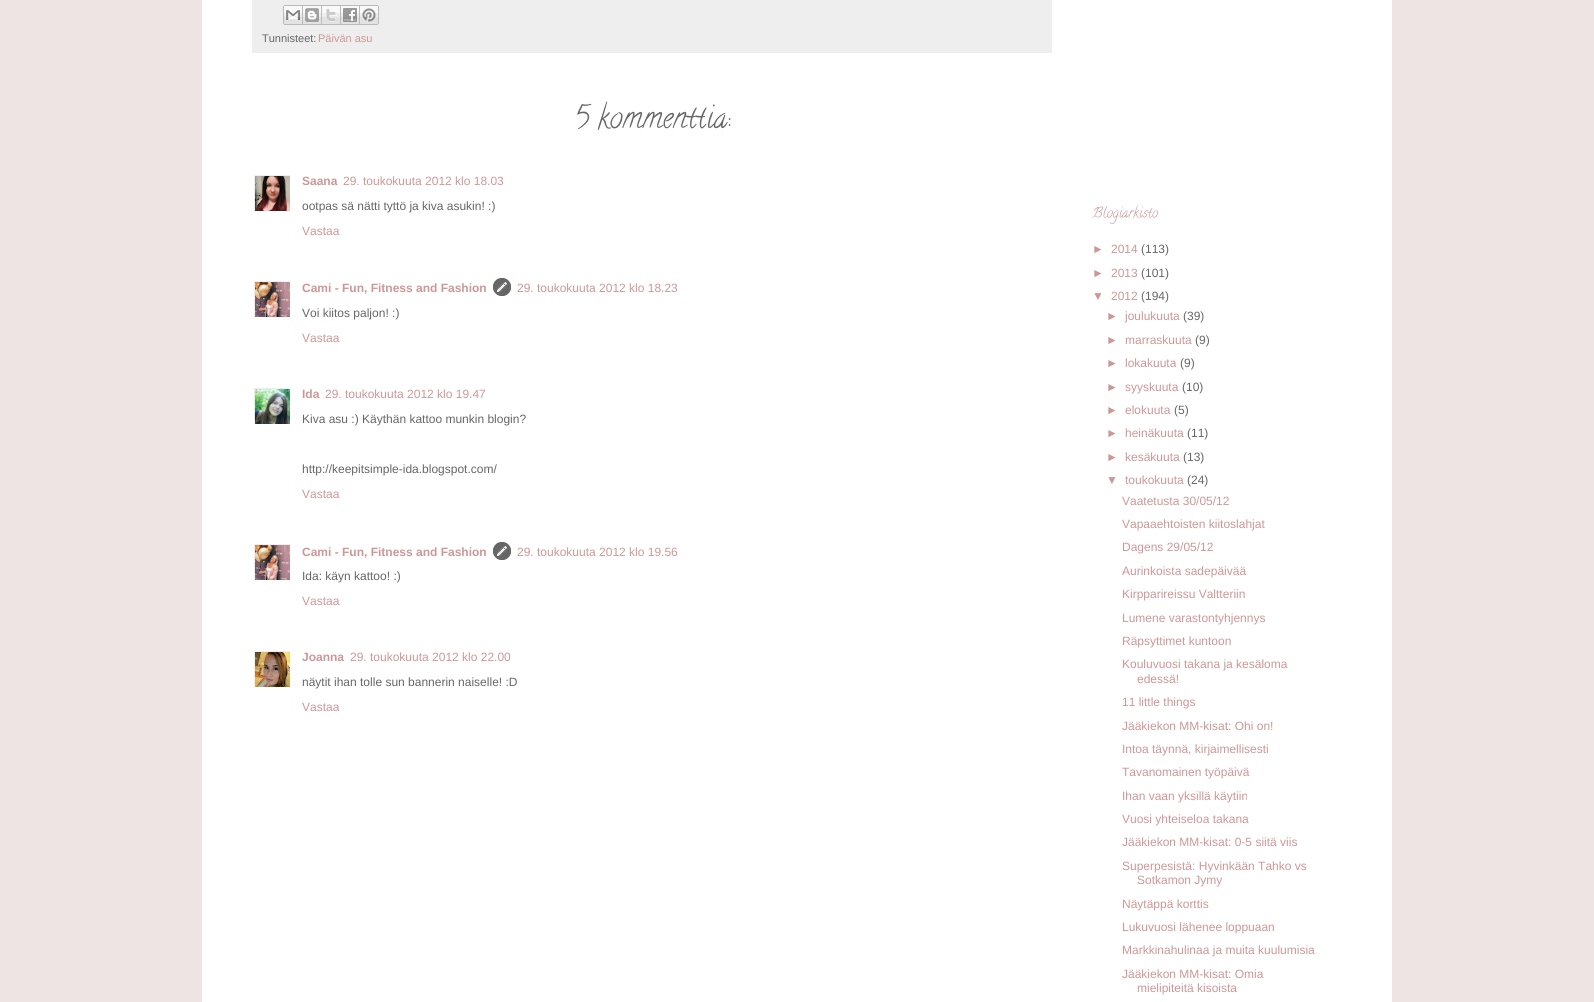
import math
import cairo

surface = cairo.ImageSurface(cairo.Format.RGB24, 1594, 1002)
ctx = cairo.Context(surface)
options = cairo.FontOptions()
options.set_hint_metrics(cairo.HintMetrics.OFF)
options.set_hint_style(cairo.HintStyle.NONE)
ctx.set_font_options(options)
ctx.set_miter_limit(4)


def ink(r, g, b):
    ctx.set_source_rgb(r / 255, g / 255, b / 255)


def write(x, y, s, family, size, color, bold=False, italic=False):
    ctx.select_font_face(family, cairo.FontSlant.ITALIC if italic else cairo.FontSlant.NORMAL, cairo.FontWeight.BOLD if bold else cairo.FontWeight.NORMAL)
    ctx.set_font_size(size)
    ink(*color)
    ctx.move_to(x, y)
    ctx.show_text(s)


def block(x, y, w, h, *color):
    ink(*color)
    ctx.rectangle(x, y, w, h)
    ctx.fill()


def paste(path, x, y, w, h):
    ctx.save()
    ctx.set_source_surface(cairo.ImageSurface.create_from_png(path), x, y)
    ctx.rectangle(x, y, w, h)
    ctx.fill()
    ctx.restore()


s1 = dict(family="Liberation Sans", size=11, color=(102, 102, 102))
s2 = dict(family="Liberation Sans", size=11, color=(206, 151, 151))
s3 = dict(family="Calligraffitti", size=30, color=(102, 102, 102))
s4 = dict(family="Liberation Sans", size=12, color=(206, 151, 151), bold=True)
s5 = dict(family="Liberation Sans", size=12, color=(206, 151, 151))
s6 = dict(family="Liberation Sans", size=12, color=(102, 102, 102))
s7 = dict(family="Calligraffitti", size=14, color=(206, 151, 151))

ink(238, 228, 228)
ctx.paint()
block(202, 0, 1190, 1002, 255, 255, 255)
block(252, 0, 800, 53, 238, 238, 238)
paste("pic1.png", 283, 5, 20, 20)
paste("pic2.png", 303, 5, 19, 20)
paste("pic3.png", 322, 5, 19, 20)
paste("pic4.png", 341, 5, 19, 20)
paste("pic5.png", 360, 5, 19, 20)
write(262, 42, "Tunnisteet:", **s1)
write(318, 42, "Päivän asu", **s2)
write(573, 127, "5 kommenttia:", **s3)
ctx.save()
ctx.rectangle(254, 175, 36, 36)
ctx.clip()
ctx.rectangle(254.5, 175.5, 37, 37)
ink(238, 238, 238)
ctx.set_line_width(1)
ctx.stroke()
ctx.restore()
paste("pic6.png", 255, 176, 35, 35)
write(302, 185, "Saana", **s4)
write(343, 185, "29. toukokuuta 2012 klo 18.03", **s5)
write(302, 210, "ootpas sä nätti tyttö ja kiva asukin! :)", **s6)
write(302, 235, "Vastaa", **s5)
ctx.save()
ctx.rectangle(254, 281, 36, 36)
ctx.clip()
ctx.rectangle(254.5, 281.5, 37, 37)
ink(238, 238, 238)
ctx.set_line_width(1)
ctx.stroke()
ctx.restore()
paste("pic7.png", 255, 282, 35, 35)
write(302, 292, "Cami - Fun, Fitness and Fashion", **s4)
paste("pic8.png", 493, 278, 18, 18)
write(517, 292, "29. toukokuuta 2012 klo 18.23", **s5)
write(302, 317, "Voi kiitos paljon! :)", **s6)
write(302, 342, "Vastaa", **s5)
ctx.save()
ctx.rectangle(254, 388, 36, 36)
ctx.clip()
ctx.rectangle(254.5, 388.5, 37, 37)
ink(238, 238, 238)
ctx.set_line_width(1)
ctx.stroke()
ctx.restore()
paste("pic9.png", 255, 389, 35, 35)
write(302, 398, "Ida", **s4)
write(325, 398, "29. toukokuuta 2012 klo 19.47", **s5)
write(302, 423, "Kiva asu :) Käythän kattoo munkin blogin?", **s6)
write(302, 473, "http://keepitsimple-ida.blogspot.com/", **s6)
write(302, 498, "Vastaa", **s5)
ctx.save()
ctx.rectangle(254, 544, 36, 36)
ctx.clip()
ctx.rectangle(254.5, 544.5, 37, 37)
ink(238, 238, 238)
ctx.set_line_width(1)
ctx.stroke()
ctx.restore()
paste("pic7.png", 255, 545, 35, 35)
write(302, 556, "Cami - Fun, Fitness and Fashion", **s4)
paste("pic8.png", 493, 542, 18, 18)
write(517, 556, "29. toukokuuta 2012 klo 19.56", **s5)
write(302, 580, "Ida: käyn kattoo! :)", **s6)
write(302, 605, "Vastaa", **s5)
ctx.save()
ctx.rectangle(254, 651, 36, 36)
ctx.clip()
ctx.rectangle(254.5, 651.5, 36, 36)
ink(238, 238, 238)
ctx.set_line_width(1)
ctx.stroke()
ctx.restore()
paste("pic10.png", 255, 652, 35, 35)
write(302, 661, "Joanna", **s4)
write(350, 661, "29. toukokuuta 2012 klo 22.00", **s5)
write(302, 686, "näytit ihan tolle sun bannerin naiselle! :D", **s6)
write(302, 711, "Vastaa", **s5)
write(1092, 217, "Blogiarkisto", **s7)
write(1092, 253, "►", **s5)
write(1111, 253, "2014", **s5)
write(1141, 253, "(113)", **s6)
write(1092, 277, "►", **s5)
write(1111, 277, "2013", **s5)
write(1141, 277, "(101)", **s6)
write(1092, 300, "▼", **s5)
write(1111, 300, "2012", **s5)
write(1141, 300, "(194)", **s6)
write(1106, 320, "►", **s5)
write(1125, 320, "joulukuuta", **s5)
write(1183, 320, "(39)", **s6)
write(1106, 344, "►", **s5)
write(1125, 344, "marraskuuta", **s5)
write(1195, 344, "(9)", **s6)
write(1106, 367, "►", **s5)
write(1125, 367, "lokakuuta", **s5)
write(1180, 367, "(9)", **s6)
write(1106, 391, "►", **s5)
write(1125, 391, "syyskuuta", **s5)
write(1182, 391, "(10)", **s6)
write(1106, 414, "►", **s5)
write(1125, 414, "elokuuta", **s5)
write(1174, 414, "(5)", **s6)
write(1106, 437, "►", **s5)
write(1125, 437, "heinäkuuta", **s5)
write(1187, 437, "(11)", **s6)
write(1106, 461, "►", **s5)
write(1125, 461, "kesäkuuta", **s5)
write(1183, 461, "(13)", **s6)
write(1106, 484, "▼", **s5)
write(1125, 484, "toukokuuta", **s5)
write(1187, 484, "(24)", **s6)
write(1122, 505, "Vaatetusta 30/05/12", **s5)
write(1122, 528, "Vapaaehtoisten kiitoslahjat", **s5)
write(1122, 551, "Dagens 29/05/12", **s5)
write(1122, 575, "Aurinkoista sadepäivää", **s5)
write(1122, 598, "Kirpparireissu Valtteriin", **s5)
write(1122, 622, "Lumene varastontyhjennys", **s5)
write(1122, 645, "Räpsyttimet kuntoon", **s5)
write(1122, 668, "Kouluvuosi takana ja kesäloma", **s5)
write(1137, 683, "edessä!", **s5)
write(1122, 706, "11 little things", **s5)
write(1122, 730, "Jääkiekon MM-kisat: Ohi on!", **s5)
write(1122, 753, "Intoa täynnä, kirjaimellisesti", **s5)
write(1122, 776, "Tavanomainen työpäivä", **s5)
write(1122, 800, "Ihan vaan yksillä käytiin", **s5)
write(1122, 823, "Vuosi yhteiseloa takana", **s5)
write(1122, 846, "Jääkiekon MM-kisat: 0-5 siitä viis", **s5)
write(1122, 870, "Superpesistä: Hyvinkään Tahko vs", **s5)
write(1137, 884, "Sotkamon Jymy", **s5)
write(1122, 908, "Näytäppä korttis", **s5)
write(1122, 931, "Lukuvuosi lähenee loppuaan", **s5)
write(1122, 954, "Markkinahulinaa ja muita kuulumisia", **s5)
write(1122, 978, "Jääkiekon MM-kisat: Omia", **s5)
write(1137, 992, "mielipiteitä kisoista", **s5)
surface.write_to_png("screenshot.png")
